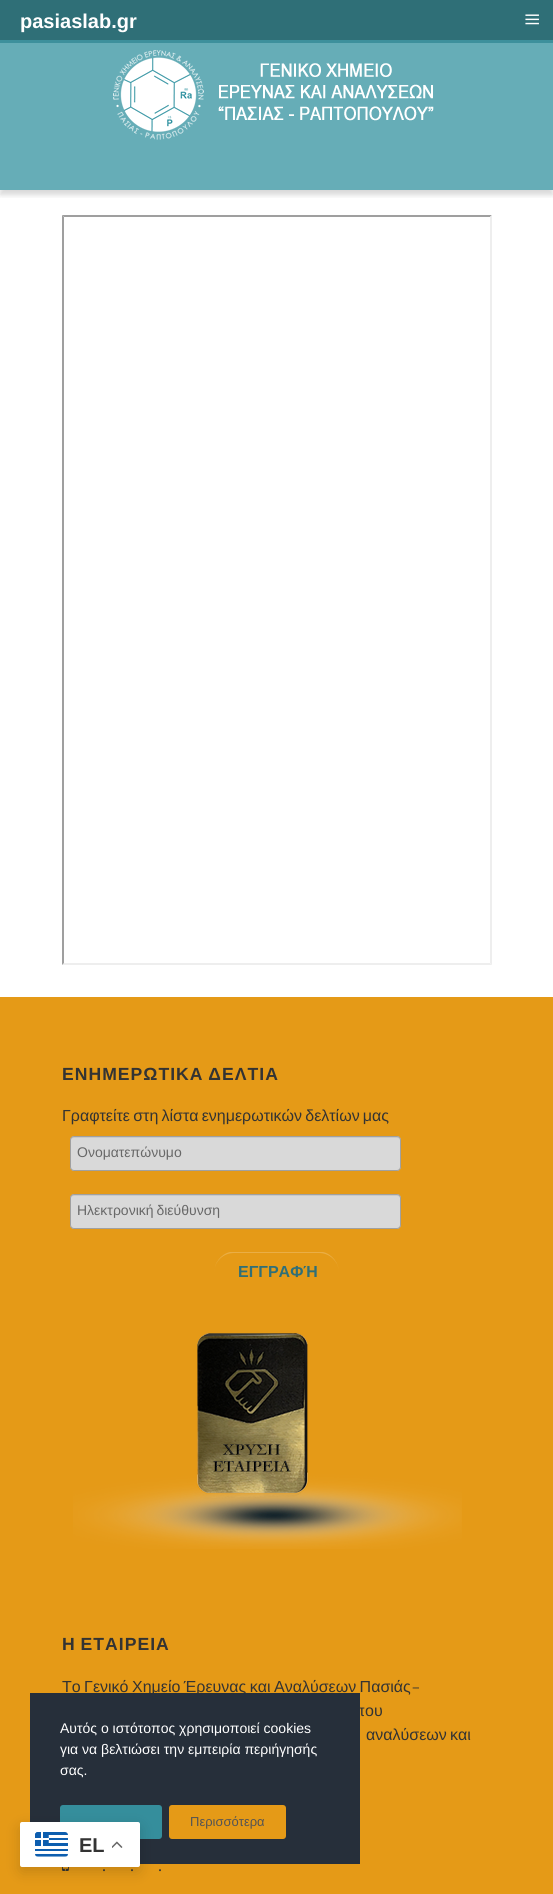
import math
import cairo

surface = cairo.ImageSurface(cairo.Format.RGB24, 553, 1894)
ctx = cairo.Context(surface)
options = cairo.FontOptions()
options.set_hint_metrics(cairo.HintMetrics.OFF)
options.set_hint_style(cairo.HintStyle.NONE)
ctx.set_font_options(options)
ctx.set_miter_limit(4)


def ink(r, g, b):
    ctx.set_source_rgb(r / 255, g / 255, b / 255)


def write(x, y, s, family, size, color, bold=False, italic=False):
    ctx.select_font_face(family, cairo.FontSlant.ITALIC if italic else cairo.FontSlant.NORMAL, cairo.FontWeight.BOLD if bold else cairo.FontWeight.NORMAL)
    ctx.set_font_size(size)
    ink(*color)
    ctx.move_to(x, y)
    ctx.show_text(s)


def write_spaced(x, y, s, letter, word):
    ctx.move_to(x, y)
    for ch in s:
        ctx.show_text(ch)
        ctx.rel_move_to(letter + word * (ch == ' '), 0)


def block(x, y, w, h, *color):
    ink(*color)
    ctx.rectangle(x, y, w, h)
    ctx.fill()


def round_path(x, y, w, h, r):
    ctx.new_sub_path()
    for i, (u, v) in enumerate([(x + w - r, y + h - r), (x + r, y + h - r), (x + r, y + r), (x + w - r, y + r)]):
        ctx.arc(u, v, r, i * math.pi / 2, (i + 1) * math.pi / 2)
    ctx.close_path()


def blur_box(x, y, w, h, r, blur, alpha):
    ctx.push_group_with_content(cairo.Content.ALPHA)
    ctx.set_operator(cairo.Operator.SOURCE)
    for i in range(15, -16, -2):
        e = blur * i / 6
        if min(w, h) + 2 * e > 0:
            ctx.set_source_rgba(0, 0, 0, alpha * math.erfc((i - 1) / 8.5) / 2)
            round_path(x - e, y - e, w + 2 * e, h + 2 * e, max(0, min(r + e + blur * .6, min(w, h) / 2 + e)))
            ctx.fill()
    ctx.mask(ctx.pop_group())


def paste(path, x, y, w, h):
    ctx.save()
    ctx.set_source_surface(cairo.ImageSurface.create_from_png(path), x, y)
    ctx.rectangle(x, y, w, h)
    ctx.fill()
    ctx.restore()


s1 = dict(family="Liberation Sans", size=20, color=(255, 255, 255), bold=True)
s2 = dict(family="Liberation Serif", size=29, color=(255, 255, 255))
s3 = dict(family="Liberation Sans", size=14, color=(104, 104, 104))
s4 = dict(family="Liberation Sans", size=16, color=(47, 111, 119), bold=True)
s5 = dict(family="Source Sans Pro", size=16, color=(51, 51, 51))
s6 = dict(family="Liberation Sans", size=20, color=(51, 51, 51), bold=True)
s7 = dict(family="Liberation Sans", size=14, color=(255, 255, 255))
s8 = dict(family="Liberation Sans", size=13, color=(84, 84, 84))

ink(255, 255, 255)
ctx.paint()
block(0, 43, 553, 147, 102, 173, 183)
block(0, 0, 553, 40, 47, 111, 119)
block(0, 40, 553, 3, 61, 144, 156)
write(20, 28, "pasiaslab.gr", **s1)
write(524, 29, "≡", **s2)
ctx.save()
ctx.rectangle(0, 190, 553, 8)
ctx.clip()
ink(0, 0, 0)
blur_box(0, 45, 553, 150, 0, 2.5, 0.15)
ctx.restore()
paste("pic1.png", 113, 50, 321, 90)
ink(159, 159, 159)
ctx.new_path()
ctx.move_to(62, 215)
ctx.line_to(492, 215)
ctx.line_to(490, 217)
ctx.line_to(64, 217)
ctx.close_path()
ctx.fill()
ink(238, 238, 238)
ctx.new_path()
ctx.move_to(492, 215)
ctx.line_to(492, 965)
ctx.line_to(490, 963)
ctx.line_to(490, 217)
ctx.close_path()
ctx.fill()
ctx.new_path()
ctx.move_to(492, 965)
ctx.line_to(62, 965)
ctx.line_to(64, 963)
ctx.line_to(490, 963)
ctx.close_path()
ctx.fill()
ink(159, 159, 159)
ctx.new_path()
ctx.move_to(62, 965)
ctx.line_to(62, 215)
ctx.line_to(64, 217)
ctx.line_to(64, 963)
ctx.close_path()
ctx.fill()
block(0, 997, 553, 897, 229, 154, 23)
ctx.select_font_face("Liberation Sans", cairo.FontSlant.NORMAL, cairo.FontWeight.BOLD)
ctx.set_font_size(17.6)
ink(51, 51, 51)
write_spaced(62, 1080, "ΕΝΗΜΕΡΩΤΙΚΑ ΔΕΛΤΙΑ", 1, -1)
ctx.select_font_face("Liberation Sans")
ctx.set_font_size(16)
write_spaced(62, 1121, "Γραφτείτε στη λίστα ενημερωτικών δελτίων μας", 0, -1.25)
ink(217, 217, 217)
round_path(70, 1136, 331, 35, 4)
ctx.fill()
ink(201, 201, 201)
ctx.new_path()
ctx.move_to(74, 1138)
ctx.line_to(397, 1138)
ctx.curve_to(399, 1138, 400, 1139, 400, 1141)
ctx.curve_to(400, 1139, 399, 1137, 397, 1137)
ctx.line_to(74, 1137)
ctx.curve_to(72, 1137, 71, 1139, 71, 1141)
ctx.curve_to(71, 1139, 72, 1138, 74, 1138)
ctx.close_path()
ctx.fill()
round_path(70.5, 1136.5, 330, 34, 3.5)
ctx.set_source_rgba(0.408, 0.408, 0.408, 0.5)
ctx.set_line_width(1)
ctx.stroke()
write(77, 1157, "Ονοματεπώνυμο", **s3)
ink(217, 217, 217)
round_path(70, 1194, 331, 35, 4)
ctx.fill()
ink(201, 201, 201)
ctx.new_path()
ctx.move_to(74, 1196)
ctx.line_to(397, 1196)
ctx.curve_to(399, 1196, 400, 1197, 400, 1199)
ctx.curve_to(400, 1197, 399, 1195, 397, 1195)
ctx.line_to(74, 1195)
ctx.curve_to(72, 1195, 71, 1197, 71, 1199)
ctx.curve_to(71, 1197, 72, 1196, 74, 1196)
ctx.close_path()
ctx.fill()
round_path(70.5, 1194.5, 330, 34, 3.5)
ctx.set_source_rgba(0.408, 0.408, 0.408, 0.5)
ctx.stroke()
ink(104, 104, 104)
write_spaced(77, 1215, "Ηλεκτρονική διεύθυνση", 0, -1)
ink(234, 174, 69)
ctx.new_path()
ctx.move_to(234, 1253)
ctx.line_to(319, 1253)
ctx.curve_to(330, 1253, 339, 1262, 339, 1273)
ctx.curve_to(339, 1263, 332, 1254, 323, 1252)
ctx.line_to(305, 1252)
ctx.line_to(230, 1252)
ctx.curve_to(221, 1254, 214, 1263, 214, 1273)
ctx.curve_to(214, 1262, 223, 1253, 234, 1253)
ctx.close_path()
ctx.fill()
write(238, 1277, "ΕΓΓΡΑΦΉ", **s4)
paste("pic2.png", 73, 1333, 389, 216)
ctx.set_font_size(17.6)
ink(51, 51, 51)
write_spaced(62, 1650, "Η ΕΤΑΙΡΕΙΑ", 1, -1)
ctx.select_font_face("Liberation Sans")
ctx.set_font_size(16)
write_spaced(62, 1692, "Το Γενικό Χημείο Έρευνας και Αναλύσεων Πασιάς", 0, -1)
write(412, 1692, "–", **s5)
ctx.select_font_face("Liberation Sans")
write_spaced(354, 1716, "που", 0, -1.25)
write_spaced(366, 1740, "αναλύσεων και", 0, -1.25)
paste("pic3.png", 62, 1867, 7, 4)
write(102, 1871, ".", **s5)
write(130, 1871, ".", **s5)
write(158, 1871, ".", **s5)
block(30, 1693, 330, 171, 38, 47, 58)
ink(53, 142, 156)
round_path(60, 1805, 102, 34, 3)
ctx.fill()
ink(0, 0, 0)
blur_box(20, 1827, 120, 45, 2, 7.5, 0.15)
ink(255, 255, 255)
round_path(20, 1822, 120, 45, 2)
ctx.fill()
paste("pic4.png", 35, 1832, 33, 25)
write(79, 1852, "EL", **s6)
paste("pic5.png", 112, 1841, 11, 7)
write(60, 1733, "Αυτός ο ιστότοπος χρησιμοποιεί cookies", **s7)
write(60, 1754, "για να βελτιώσει την εμπειρία περιήγησής", **s7)
write(60, 1775, "σας.", **s7)
ink(229, 154, 23)
round_path(169, 1805, 117, 34, 3)
ctx.fill()
write(190, 1826, "Περισσότερα", **s8)
surface.write_to_png("screenshot.png")
